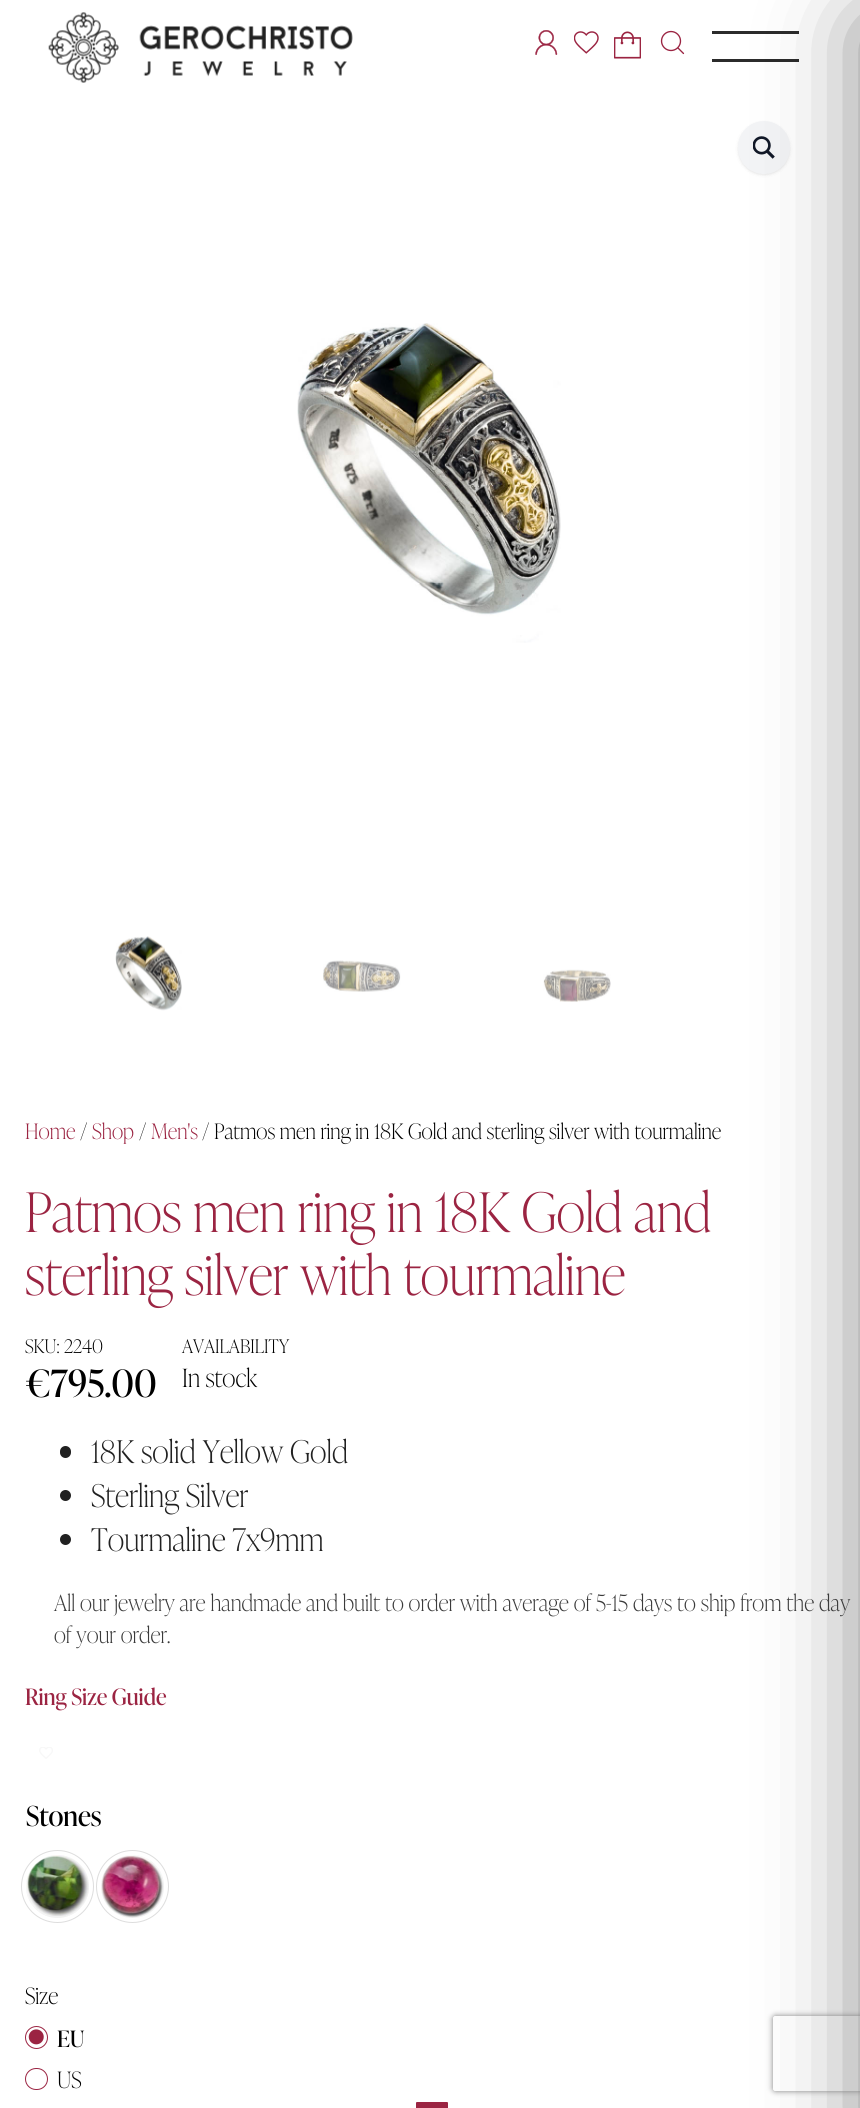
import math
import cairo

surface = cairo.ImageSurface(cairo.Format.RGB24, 860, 2108)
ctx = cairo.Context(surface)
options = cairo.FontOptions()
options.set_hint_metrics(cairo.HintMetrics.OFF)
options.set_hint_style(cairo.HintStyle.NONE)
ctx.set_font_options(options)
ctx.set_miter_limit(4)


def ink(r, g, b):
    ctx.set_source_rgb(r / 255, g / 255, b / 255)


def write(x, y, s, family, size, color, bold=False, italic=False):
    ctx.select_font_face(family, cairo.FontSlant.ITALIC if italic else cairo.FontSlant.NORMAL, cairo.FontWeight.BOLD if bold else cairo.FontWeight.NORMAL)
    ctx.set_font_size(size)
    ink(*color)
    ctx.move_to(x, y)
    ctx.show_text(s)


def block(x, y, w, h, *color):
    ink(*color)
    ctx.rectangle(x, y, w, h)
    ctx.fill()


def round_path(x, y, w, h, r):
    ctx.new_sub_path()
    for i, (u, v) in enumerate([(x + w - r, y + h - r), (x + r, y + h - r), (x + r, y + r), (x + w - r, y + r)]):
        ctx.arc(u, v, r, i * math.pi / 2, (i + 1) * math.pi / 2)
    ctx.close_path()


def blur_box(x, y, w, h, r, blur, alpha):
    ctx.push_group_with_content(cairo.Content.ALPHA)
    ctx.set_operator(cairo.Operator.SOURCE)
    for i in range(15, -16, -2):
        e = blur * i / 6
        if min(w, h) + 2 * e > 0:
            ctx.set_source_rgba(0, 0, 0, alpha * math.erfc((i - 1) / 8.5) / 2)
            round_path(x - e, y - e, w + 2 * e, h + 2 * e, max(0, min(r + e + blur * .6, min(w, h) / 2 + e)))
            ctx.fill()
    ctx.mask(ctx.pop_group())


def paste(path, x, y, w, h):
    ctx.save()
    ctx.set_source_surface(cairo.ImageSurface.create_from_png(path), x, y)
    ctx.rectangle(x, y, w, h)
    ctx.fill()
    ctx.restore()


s1 = dict(family="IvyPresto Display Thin", size=21.25, color=(155, 36, 66))
s2 = dict(family="IvyPresto Display Thin", size=21.25, color=(0, 0, 0))
s3 = dict(family="IvyPresto Display Thin", size=54.4, color=(155, 36, 66))
s4 = dict(family="IvyPresto Display Thin", size=18.75, color=(0, 0, 0))
s5 = dict(family="IvyPresto Display", size=37.5, color=(0, 0, 0))
s6 = dict(family="IvyPresto Display Thin", size=25, color=(0, 0, 0))
s7 = dict(family="IvyPresto Display Thin", size=31.25, color=(33, 33, 33))
s8 = dict(family="IvyPresto Display Thin", size=22.5, color=(58, 58, 58))
s9 = dict(family="IvyPresto Display", size=22.5, color=(155, 36, 66))
s10 = dict(family="IvyPresto Display", size=27.5, color=(0, 0, 0))
s11 = dict(family="IvyPresto Display Thin", size=22.5, color=(0, 0, 0))
s12 = dict(family="IvyPresto Display", size=22.5, color=(0, 0, 0))

ink(255, 255, 255)
ctx.paint()
paste("pic1.png", 48, 12, 305, 71)
paste("pic2.png", 535, 30, 23, 25)
paste("pic3.png", 574, 31, 25, 23)
paste("pic4.png", 614, 31, 27, 28)
paste("pic5.png", 660, 30, 25, 25)
block(712, 31, 87, 3, 43, 43, 43)
block(712, 59, 87, 3, 43, 43, 43)
ink(0, 0, 0)
blur_box(738, 123, 52, 52, 26, 1, 0.05)
blur_box(738, 123, 52, 52, 26, 2, 0.05)
ink(243, 244, 246)
round_path(738, 121, 52, 53, 26)
ctx.fill()
paste("pic6.png", 753, 136, 22, 23)
paste("pic7.png", 297, 323, 264, 320)
paste("pic8.png", 115, 936, 67, 75)
paste("pic9.png", 323, 960, 78, 32)
paste("pic10.png", 543, 969, 68, 33)
write(25, 1139, "Home", **s1)
write(80, 1139, "/", **s2)
write(92, 1139, "Shop", **s1)
write(139, 1139, "/", **s2)
write(151, 1139, "Men's", **s1)
write(202, 1139, "/ Patmos men ring in 18K Gold and sterling silver with tourmaline", **s2)
ink(0, 0, 0)
blur_box(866, 25, 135, 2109, 0, 47, 0.52)
write(25, 1232, "Patmos men ring in 18K Gold and", **s3)
write(25, 1295, "sterling silver with tourmaline", **s3)
write(25, 1353, "SKU: 2240", **s4)
write(25, 1397, "€795.00", **s5)
write(182, 1353, "AVAILABILITY", **s4)
write(182, 1387, "In stock", **s6)
ink(33, 33, 33)
round_path(60, 1446, 11, 12, 5.5)
ctx.fill()
write(91, 1463, "18K solid Yellow Gold", **s7)
ctx.new_path()
ctx.arc(65.5, 1495.5, 5.5, 0, 2 * math.pi)
ctx.fill()
write(91, 1507, "Sterling Silver", **s7)
ctx.new_path()
ctx.arc(65.5, 1539.5, 5.5, 0, 2 * math.pi)
ctx.fill()
write(91, 1551, "Tourmaline 7x9mm", **s7)
write(54, 1611, "All our jewelry are handmade and built to order with average of 5-15 days to ship from the day", **s8)
write(54, 1643, "of your order.", **s8)
write(25, 1705, "Ring Size Guide", **s9)
paste("pic11.png", 39, 1747, 14, 12)
write(26, 1826, "Stones", **s10)
ink(241, 241, 241)
ctx.new_path()
ctx.arc(57.5, 1886.5, 31.5, 0, 2 * math.pi)
ctx.fill()
paste("pic12.png", 26, 1855, 63, 61)
ctx.arc(57.5, 1886.5, 36, 0, 2 * math.pi)
ink(221, 221, 221)
ctx.set_line_width(1)
ctx.stroke()
ink(241, 241, 241)
ctx.arc(132.5, 1886.5, 31.5, 0, 2 * math.pi)
ctx.fill()
paste("pic13.png", 101, 1855, 62, 63)
ctx.arc(132.5, 1886.5, 36, 0, 2 * math.pi)
ink(221, 221, 221)
ctx.stroke()
write(25, 2004, "Size", **s11)
ctx.new_path()
ctx.arc(36.5, 2037.5, 11, 0, 2 * math.pi)
ink(155, 36, 66)
ctx.stroke()
paste("pic14.png", 28, 2029, 16, 16)
write(57, 2047, "EU", **s12)
round_path(25.5, 2068.5, 22, 21, 10.5)
ink(155, 36, 66)
ctx.stroke()
write(57, 2088, "US", **s11)
ink(155, 36, 66)
round_path(414.5, 2100.5, 35, 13, 2.5)
ctx.fill_preserve()
ink(255, 255, 255)
ctx.set_line_width(3)
ctx.stroke()
ctx.save()
ctx.set_fill_rule(cairo.FillRule.EVEN_ODD)
ctx.new_path()
ctx.move_to(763, 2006)
ctx.line_to(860, 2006)
ctx.line_to(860, 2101)
ctx.line_to(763, 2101)
ctx.close_path()
ctx.move_to(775.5, 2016)
ctx.line_to(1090.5, 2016)
ctx.curve_to(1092, 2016, 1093, 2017, 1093, 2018.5)
ctx.line_to(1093, 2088.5)
ctx.curve_to(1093, 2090, 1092, 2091, 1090.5, 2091)
ctx.line_to(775.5, 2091)
ctx.curve_to(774, 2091, 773, 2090, 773, 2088.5)
ctx.line_to(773, 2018.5)
ctx.curve_to(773, 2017, 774, 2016, 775.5, 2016)
ctx.close_path()
ctx.clip()
ink(128, 128, 128)
blur_box(773, 2016, 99, 75, 2.5, 3, 1)
ctx.restore()
surface.write_to_png("screenshot.png")
